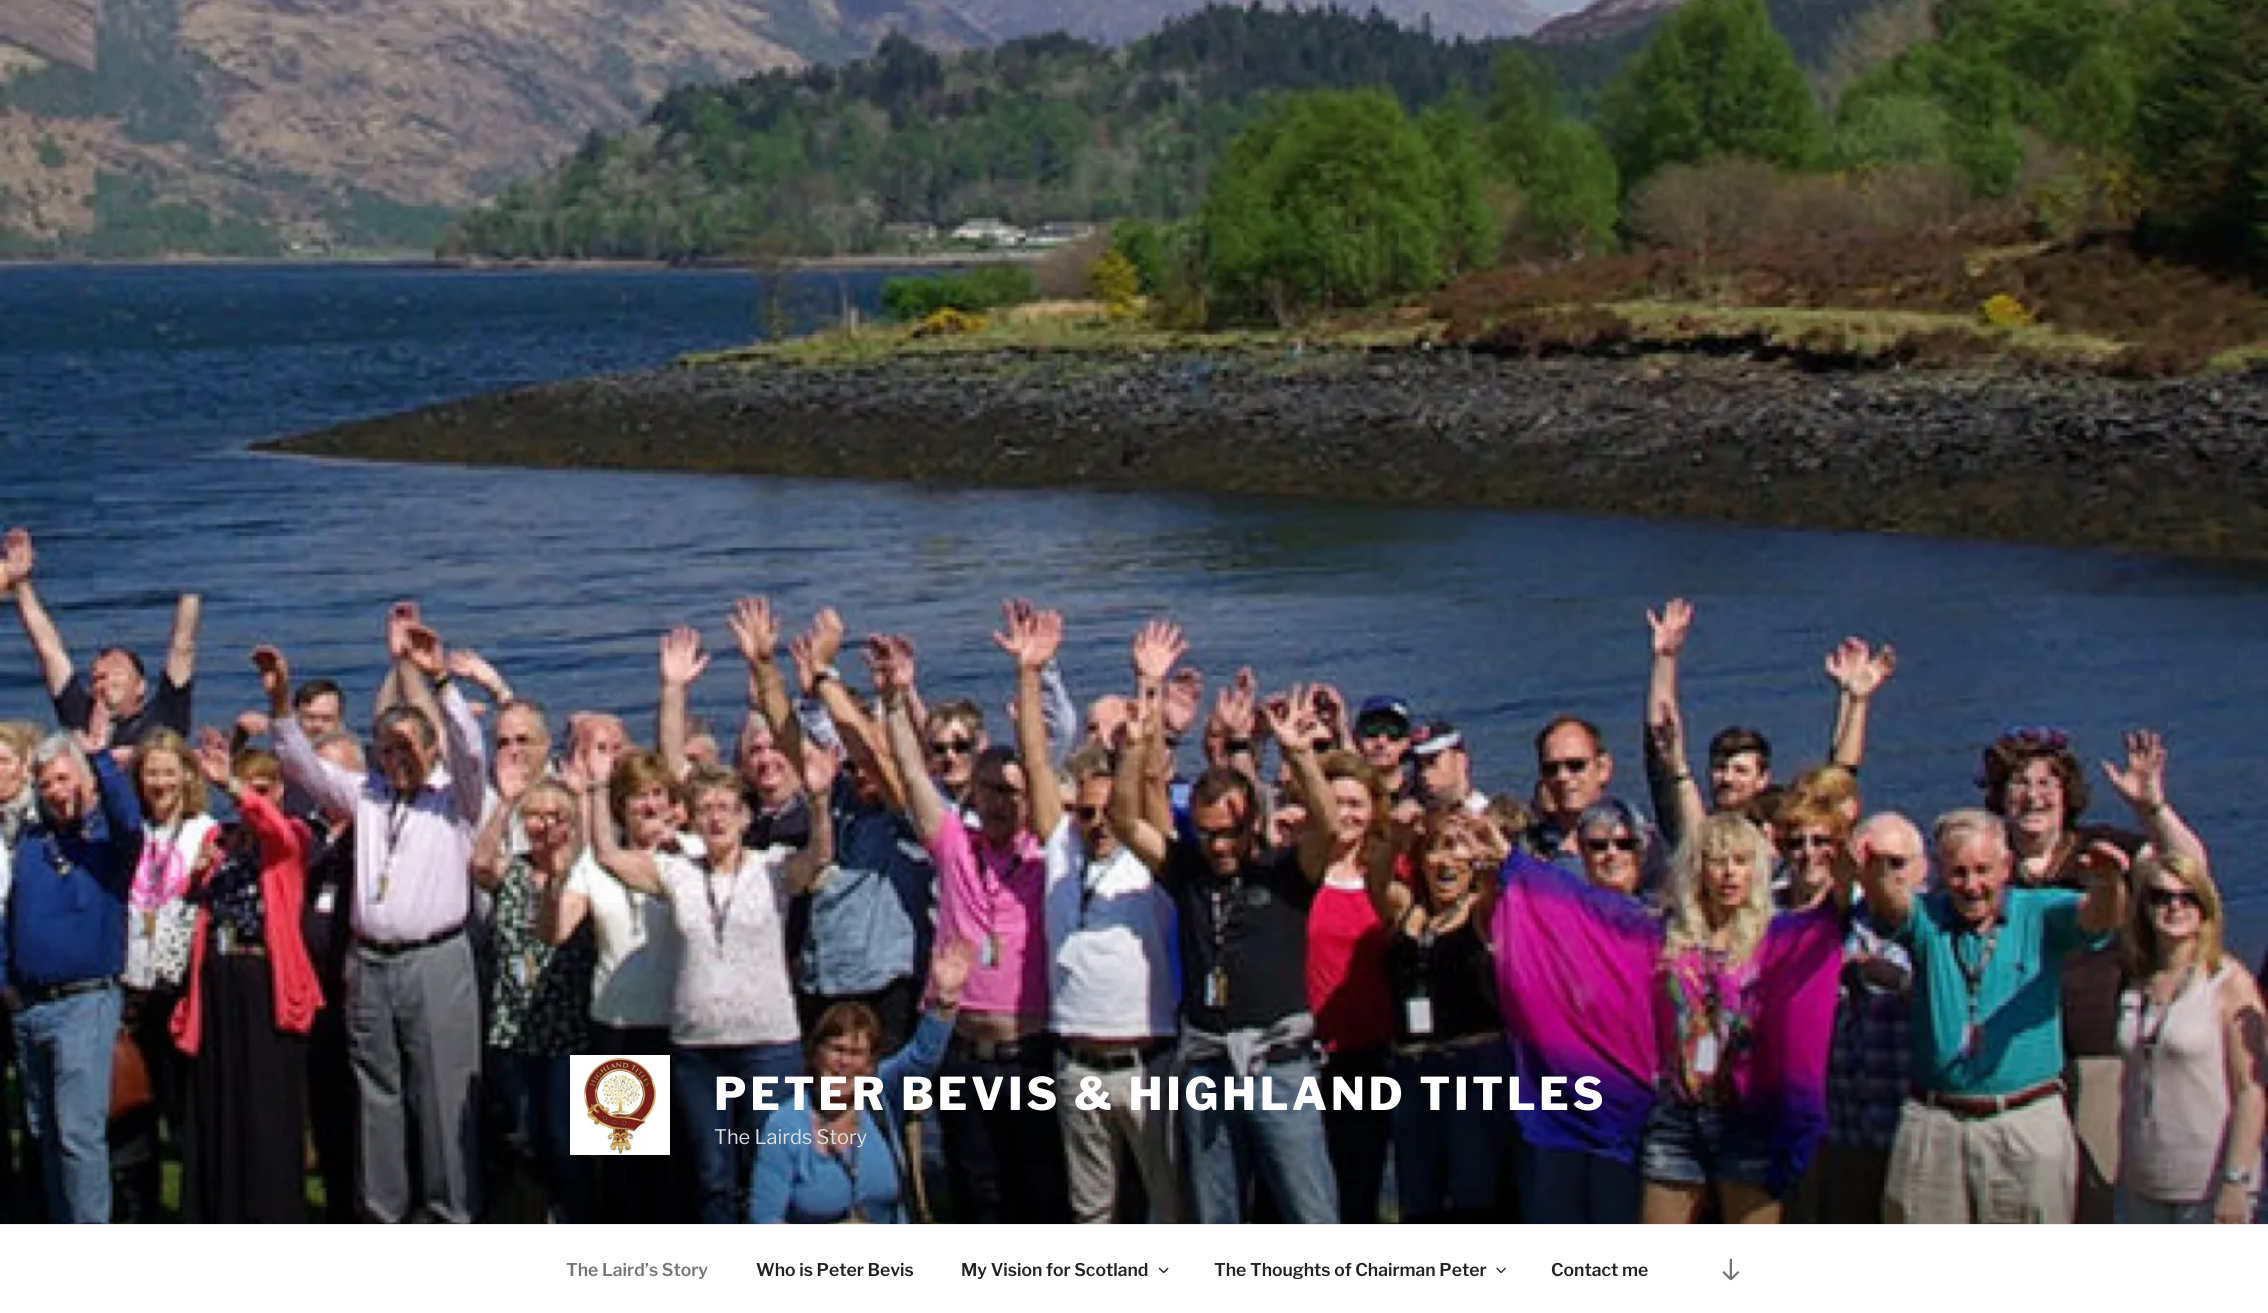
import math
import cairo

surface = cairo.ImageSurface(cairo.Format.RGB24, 2268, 1313)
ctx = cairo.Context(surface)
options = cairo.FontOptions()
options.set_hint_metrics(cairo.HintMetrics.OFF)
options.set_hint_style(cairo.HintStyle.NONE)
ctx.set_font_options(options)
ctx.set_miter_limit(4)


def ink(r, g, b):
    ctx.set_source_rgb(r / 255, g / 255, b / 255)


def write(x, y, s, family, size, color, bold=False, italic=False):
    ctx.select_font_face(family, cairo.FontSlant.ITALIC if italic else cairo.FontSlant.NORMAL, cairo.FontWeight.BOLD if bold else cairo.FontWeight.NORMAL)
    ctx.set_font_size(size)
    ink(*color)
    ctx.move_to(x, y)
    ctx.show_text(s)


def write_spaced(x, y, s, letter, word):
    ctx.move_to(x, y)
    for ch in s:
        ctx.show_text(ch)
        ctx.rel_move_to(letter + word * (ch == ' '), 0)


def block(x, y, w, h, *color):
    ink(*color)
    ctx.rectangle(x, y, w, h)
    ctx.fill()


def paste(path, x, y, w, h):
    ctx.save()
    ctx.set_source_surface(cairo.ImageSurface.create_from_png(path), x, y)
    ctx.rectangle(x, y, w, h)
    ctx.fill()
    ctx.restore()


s1 = dict(family="Libre Franklin", size=20, color=(220, 222, 226))
s2 = dict(family="Libre Franklin SemiBold", size=17.5, color=(118, 118, 118))
s3 = dict(family="Libre Franklin SemiBold", size=17.5, color=(34, 34, 34))

ink(255, 255, 255)
ctx.paint()
paste("pic1.png", 0, 0, 2268, 1224)
gradient = cairo.LinearGradient(1134, 880, 1134, 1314)
gradient.add_color_stop_rgba(0, 0, 0, 0, 0)
gradient.add_color_stop_rgba(0.75, 0, 0, 0, 0.3)
gradient.add_color_stop_rgba(1, 0, 0, 0, 0.3)
ctx.set_source(gradient)
ctx.rectangle(0, 903, 2268, 321)
ctx.fill()
paste("pic2.png", 570, 1055, 100, 100)
ctx.select_font_face("Libre Franklin ExtraBold")
ctx.set_font_size(45)
ink(255, 255, 255)
write_spaced(714, 1110, "PETER BEVIS & HIGHLAND TITLES", 3.6, 0)
write(714, 1144, "The Lairds Story", **s1)
block(0, 1224, 2268, 1, 238, 238, 238)
write(566, 1276, "The Laird’s Story", **s2)
write(756, 1276, "Who is Peter Bevis", **s3)
write(961, 1276, "My Vision for Scotland", **s3)
paste("pic3.png", 1158, 1267, 11, 7)
write(1214, 1276, "The Thoughts of Chairman Peter", **s3)
paste("pic4.png", 1496, 1267, 10, 7)
write(1551, 1276, "Contact me", **s3)
paste("pic5.png", 1722, 1258, 18, 23)
surface.write_to_png("screenshot.png")
